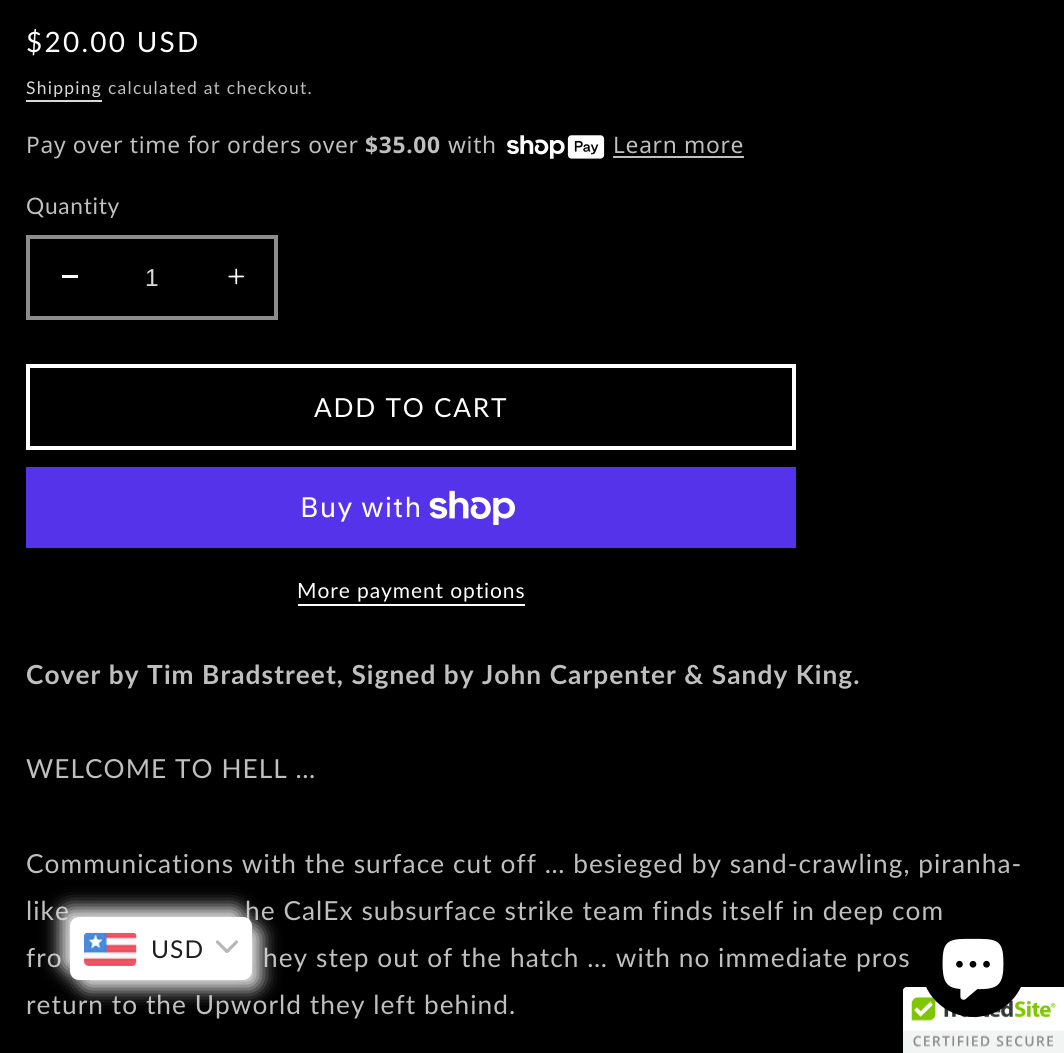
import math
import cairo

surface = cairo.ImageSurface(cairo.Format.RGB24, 1064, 1053)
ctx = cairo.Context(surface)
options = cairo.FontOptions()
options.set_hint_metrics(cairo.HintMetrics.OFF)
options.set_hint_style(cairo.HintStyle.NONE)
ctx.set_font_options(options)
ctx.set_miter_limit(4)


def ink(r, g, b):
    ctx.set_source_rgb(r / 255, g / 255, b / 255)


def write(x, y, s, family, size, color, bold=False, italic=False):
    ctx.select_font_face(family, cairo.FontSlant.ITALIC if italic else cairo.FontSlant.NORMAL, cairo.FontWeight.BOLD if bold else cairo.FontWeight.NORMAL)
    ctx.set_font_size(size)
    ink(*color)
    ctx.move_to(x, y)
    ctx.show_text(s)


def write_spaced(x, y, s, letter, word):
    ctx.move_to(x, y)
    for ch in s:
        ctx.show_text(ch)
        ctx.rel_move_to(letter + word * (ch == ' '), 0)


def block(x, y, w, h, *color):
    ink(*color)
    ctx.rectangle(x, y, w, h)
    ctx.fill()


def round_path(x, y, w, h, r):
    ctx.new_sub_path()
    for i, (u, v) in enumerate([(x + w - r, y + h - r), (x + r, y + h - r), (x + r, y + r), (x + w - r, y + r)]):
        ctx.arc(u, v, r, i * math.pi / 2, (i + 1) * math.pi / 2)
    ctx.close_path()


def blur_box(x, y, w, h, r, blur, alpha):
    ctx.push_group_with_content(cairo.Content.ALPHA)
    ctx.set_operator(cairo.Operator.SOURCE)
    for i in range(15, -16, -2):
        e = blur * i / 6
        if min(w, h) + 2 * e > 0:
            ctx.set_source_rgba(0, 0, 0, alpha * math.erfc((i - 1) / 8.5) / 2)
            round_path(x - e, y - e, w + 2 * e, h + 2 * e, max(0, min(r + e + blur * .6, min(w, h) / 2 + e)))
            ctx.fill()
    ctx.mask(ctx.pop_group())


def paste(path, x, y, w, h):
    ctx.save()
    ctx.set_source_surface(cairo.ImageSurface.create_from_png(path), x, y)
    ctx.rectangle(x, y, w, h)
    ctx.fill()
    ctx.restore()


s1 = dict(family="Liberation Sans", size=24.5, color=(217, 217, 217))

ink(0, 0, 0)
ctx.paint()
ctx.select_font_face("Lato")
ctx.set_font_size(28)
ink(255, 255, 255)
write_spaced(26, 52, "$20.00 USD", 2.25, 0)
ctx.set_font_size(17.5)
ink(217, 217, 217)
write_spaced(26, 94, "Shipping", 1.25, 0)
block(26, 100, 76, 2, 217, 217, 217)
ink(191, 191, 191)
write_spaced(108, 94, "calculated at checkout.", 1.25, 0)
ctx.select_font_face("Noto Sans")
ctx.set_font_size(22.75)
write_spaced(26, 153, "Pay over time for orders over", 0.7, 0)
ctx.select_font_face("Noto Sans", cairo.FontSlant.NORMAL, cairo.FontWeight.BOLD)
write_spaced(365, 153, "$35.00", 0.7, 0)
ctx.select_font_face("Noto Sans")
write_spaced(448, 153, "with", 0.7, 0)
paste("pic1.png", 507, 135, 98, 24)
write_spaced(613, 153, "Learn more", 0.7, 0)
block(613, 156, 131, 2, 191, 191, 191)
ctx.select_font_face("Lato")
write_spaced(26, 214, "Quantity", 0.7, 0)
block(62, 275, 16, 3, 255, 255, 255)
paste("pic2.png", 228, 268, 17, 17)
ctx.rectangle(28, 237, 248, 81)
ink(140, 140, 140)
ctx.set_line_width(4)
ctx.stroke()
write(145, 286, "1", **s1)
ctx.rectangle(28, 366, 766, 82)
ink(255, 255, 255)
ctx.stroke()
ctx.select_font_face("Lato")
ctx.set_font_size(26.25)
write_spaced(314, 417, "ADD TO CART", 1.75, 0)
block(26, 467, 770, 81, 84, 51, 235)
ctx.select_font_face("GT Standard")
ctx.set_font_size(28)
ink(255, 255, 255)
write_spaced(300, 517, "Buy with", 1.05, 0)
paste("pic3.png", 429, 490, 86, 35)
ctx.select_font_face("Lato")
ctx.set_font_size(21)
write_spaced(297, 598, "More payment options", 0.9, 0)
block(298, 604, 227, 2, 255, 255, 255)
ctx.select_font_face("Lato", cairo.FontSlant.NORMAL, cairo.FontWeight.BOLD)
ctx.set_font_size(26.25)
ink(191, 191, 191)
write_spaced(26, 684, "Cover by Tim Bradstreet, Signed by John Carpenter & Sandy King.", 1.05, 0)
ctx.select_font_face("Lato")
write_spaced(26, 778, "WELCOME TO HELL …", 1.05, 0)
write_spaced(26, 873, "Communications with the surface cut off … besieged by sand-crawling, piranha-", 1.05, 0)
write_spaced(26, 920, "like", 1.05, 0)
write_spaced(245, 920, "he CalEx subsurface strike team finds itself in deep com", 1.05, 0)
write_spaced(26, 967, "fro", 1.05, 0)
write_spaced(263, 967, "hey step out of the hatch … with no immediate pros", 1.05, 0)
write_spaced(26, 1014, "return to the Upworld they left behind.", 1.05, 0)
ink(232, 232, 232)
blur_box(61, 908, 182, 63, 9, 9, 1)
blur_box(79, 926, 182, 63, 9, 9, 1)
ink(255, 255, 255)
round_path(70, 917, 182, 63, 9)
ctx.fill()
paste("pic4.png", 84, 932, 53, 34)
ctx.set_font_size(24.5)
ink(30, 30, 30)
write_spaced(151, 958, "USD", 1.05, 0)
ctx.new_path()
ctx.move_to(217.5, 942)
ctx.line_to(227, 951.5)
ctx.line_to(236.5, 942)
ink(183, 183, 183)
ctx.set_line_width(3.2)
ctx.set_line_cap(cairo.LineCap.ROUND)
ctx.set_line_join(cairo.LineJoin.ROUND)
ctx.stroke()
ink(255, 255, 255)
ctx.new_path()
ctx.move_to(907, 987)
ctx.line_to(1064, 987)
ctx.line_to(1064, 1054)
ctx.line_to(903, 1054)
ctx.line_to(903, 991)
ctx.curve_to(903, 989, 905, 987, 907, 987)
ctx.close_path()
ctx.fill()
paste("pic6.png", 903, 987, 161, 66)
ink(0, 0, 0)
ctx.arc(973.5, 964.5, 52.5, 0, 2 * math.pi)
ctx.fill()
paste("pic5.png", 942, 938, 62, 62)
surface.write_to_png("screenshot.png")
